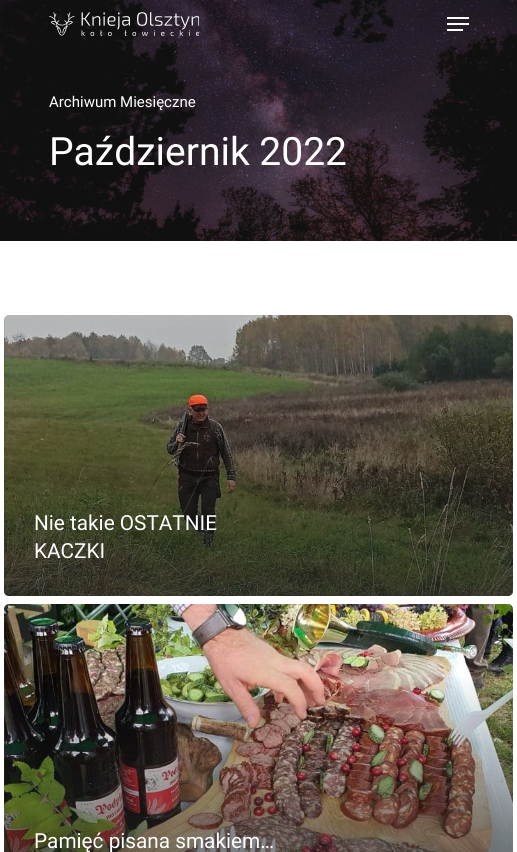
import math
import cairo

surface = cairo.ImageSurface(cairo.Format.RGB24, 517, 852)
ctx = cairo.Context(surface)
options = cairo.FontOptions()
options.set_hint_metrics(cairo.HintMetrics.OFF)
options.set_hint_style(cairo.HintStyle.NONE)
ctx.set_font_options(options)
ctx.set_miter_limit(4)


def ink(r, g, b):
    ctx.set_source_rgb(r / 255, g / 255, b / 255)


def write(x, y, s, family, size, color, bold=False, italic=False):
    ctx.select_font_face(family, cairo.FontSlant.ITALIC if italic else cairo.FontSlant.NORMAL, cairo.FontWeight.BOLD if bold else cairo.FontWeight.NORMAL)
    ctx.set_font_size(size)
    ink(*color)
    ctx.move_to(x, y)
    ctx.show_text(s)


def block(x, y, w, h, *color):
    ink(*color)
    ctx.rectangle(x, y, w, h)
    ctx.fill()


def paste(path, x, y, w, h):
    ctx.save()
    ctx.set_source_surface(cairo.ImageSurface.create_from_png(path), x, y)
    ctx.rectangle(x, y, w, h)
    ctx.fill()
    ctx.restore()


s1 = dict(family="Roboto", size=15, color=(255, 255, 255))
s2 = dict(family="Roboto", size=39, color=(255, 255, 255))
s3 = dict(family="Roboto", size=20.75, color=(255, 255, 255))

ink(255, 255, 255)
ctx.paint()
paste("pic2.png", 0, 0, 517, 241)
paste("pic1.png", 49, 12, 150, 24)
block(447, 17, 22, 2, 255, 255, 255)
block(447, 29, 16, 2, 255, 255, 255)
block(447, 23, 22, 2, 255, 255, 255)
write(49, 107, "Archiwum Miesięczne", **s1)
write(49, 165, "Październik 2022", **s2)
paste("pic3.png", 4, 315, 509, 281)
gradient = cairo.LinearGradient(260, 386, 260, 598)
gradient.add_color_stop_rgba(0, 0.137, 0.137, 0.137, 0)
gradient.add_color_stop_rgba(1, 0.137, 0.137, 0.137, 0.65)
ctx.set_source(gradient)
ctx.new_path()
ctx.move_to(4, 386)
ctx.line_to(513, 386)
ctx.line_to(513, 591)
ctx.curve_to(513, 594, 511, 596, 508, 596)
ctx.line_to(9, 596)
ctx.curve_to(6, 596, 4, 594, 4, 591)
ctx.close_path()
ctx.fill()
write(34, 530, "Nie takie OSTATNIE", **s3)
write(34, 558, "KACZKI", **s3)
paste("pic4.png", 4, 604, 509, 248)
write(34, 848, "Pamięć pisana smakiem…", **s3)
surface.write_to_png("screenshot.png")
